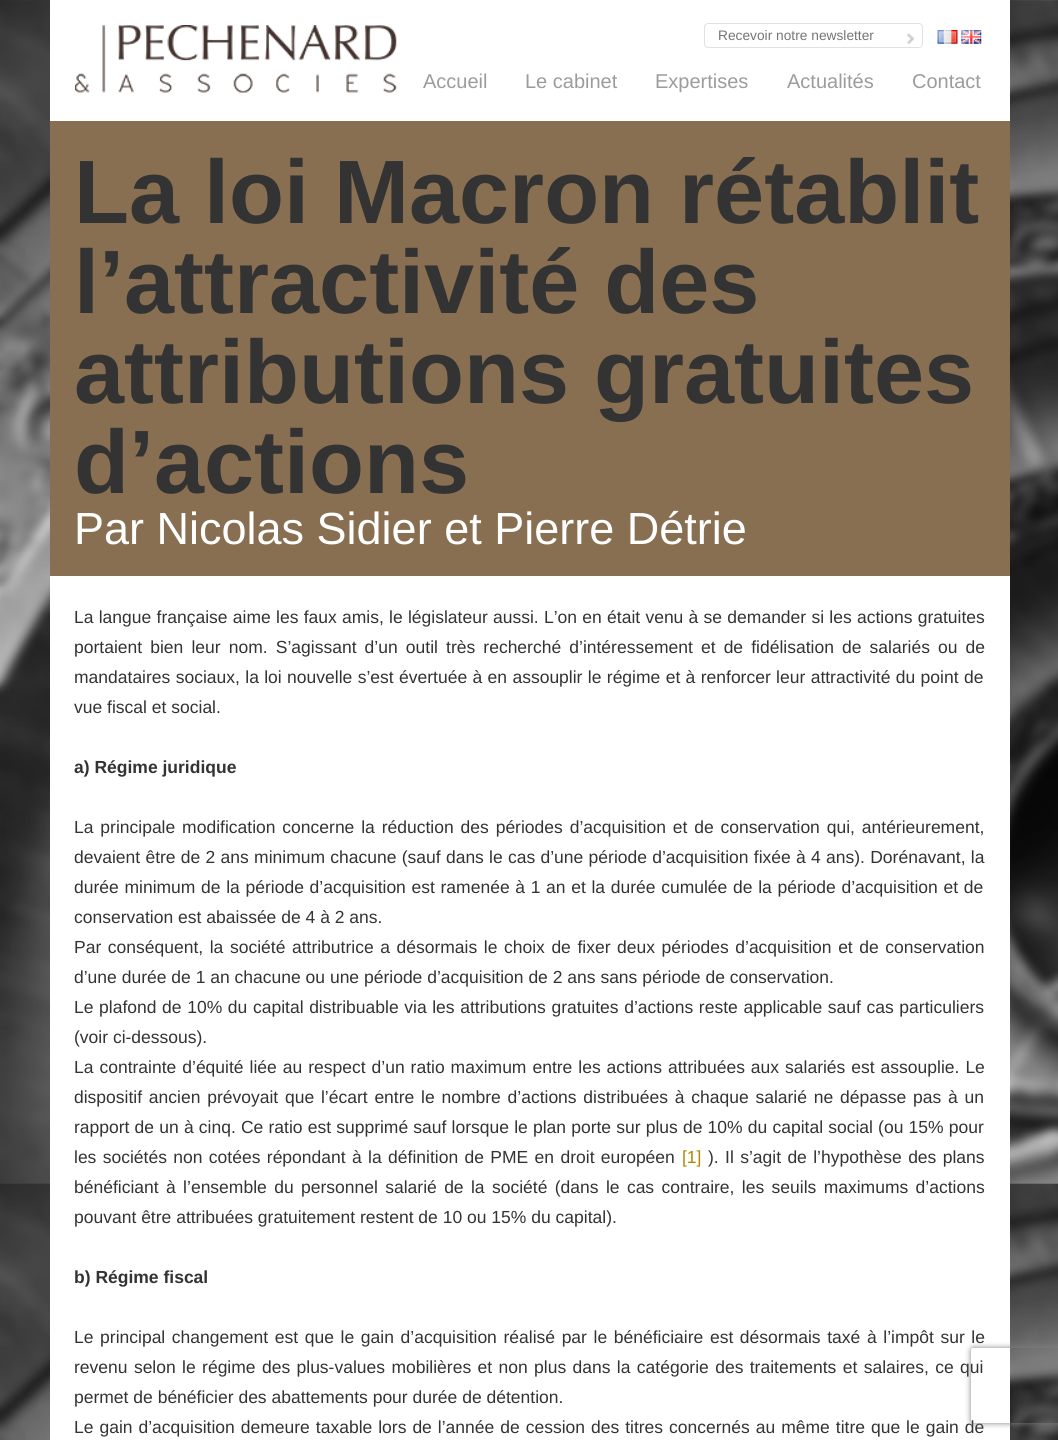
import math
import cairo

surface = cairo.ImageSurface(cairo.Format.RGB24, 1058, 1440)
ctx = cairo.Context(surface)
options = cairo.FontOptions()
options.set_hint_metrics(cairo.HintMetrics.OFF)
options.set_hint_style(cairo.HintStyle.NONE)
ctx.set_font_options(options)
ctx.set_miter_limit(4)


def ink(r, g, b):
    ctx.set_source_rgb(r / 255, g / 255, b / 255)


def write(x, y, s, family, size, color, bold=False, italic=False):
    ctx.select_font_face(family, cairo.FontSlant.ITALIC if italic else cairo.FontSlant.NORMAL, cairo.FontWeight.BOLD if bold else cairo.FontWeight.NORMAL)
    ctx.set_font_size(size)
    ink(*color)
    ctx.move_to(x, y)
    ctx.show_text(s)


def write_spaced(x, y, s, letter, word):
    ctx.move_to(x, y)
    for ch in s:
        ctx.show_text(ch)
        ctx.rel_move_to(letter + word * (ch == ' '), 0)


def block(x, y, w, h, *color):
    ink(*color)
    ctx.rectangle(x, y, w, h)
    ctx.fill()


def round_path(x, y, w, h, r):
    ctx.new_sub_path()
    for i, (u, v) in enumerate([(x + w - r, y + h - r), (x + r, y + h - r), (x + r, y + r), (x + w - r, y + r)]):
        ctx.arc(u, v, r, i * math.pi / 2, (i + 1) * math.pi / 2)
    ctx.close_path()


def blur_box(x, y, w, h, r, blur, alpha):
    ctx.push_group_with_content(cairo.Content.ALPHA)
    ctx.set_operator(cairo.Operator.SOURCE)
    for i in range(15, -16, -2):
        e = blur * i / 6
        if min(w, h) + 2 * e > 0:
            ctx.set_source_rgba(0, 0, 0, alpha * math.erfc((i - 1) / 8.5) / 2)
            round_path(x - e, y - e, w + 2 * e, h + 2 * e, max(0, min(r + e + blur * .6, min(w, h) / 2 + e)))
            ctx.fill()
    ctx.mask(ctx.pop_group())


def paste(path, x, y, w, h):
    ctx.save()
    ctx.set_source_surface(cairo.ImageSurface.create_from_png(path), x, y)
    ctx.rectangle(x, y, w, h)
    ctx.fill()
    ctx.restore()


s1 = dict(family="Liberation Sans", size=13.75, color=(117, 117, 117))
s2 = dict(family="Liberation Sans", size=20, color=(156, 156, 156))
s3 = dict(family="Liberation Sans", size=90, color=(51, 51, 51), bold=True)
s4 = dict(family="Liberation Sans", size=45, color=(255, 255, 255))
s5 = dict(family="Liberation Sans", size=17.5, color=(51, 51, 51))
s6 = dict(family="Liberation Sans", size=17.5, color=(51, 51, 51), bold=True)
s7 = dict(family="Liberation Sans", size=17.5, color=(175, 135, 0))

ink(255, 255, 255)
ctx.paint()
paste("pic1.png", 0, 0, 1058, 1440)
block(50, 0, 960, 121, 255, 255, 255)
paste("pic2.png", 75, 25, 322, 68)
round_path(704.5, 23.5, 218, 24, 3.5)
ink(225, 225, 225)
ctx.set_line_width(1)
ctx.stroke()
write(718, 40, "Recevoir notre newsletter", **s1)
paste("pic3.png", 907, 33, 7, 11)
paste("pic4.png", 937, 30, 21, 14)
paste("pic5.png", 961, 30, 21, 14)
write(423, 88, "Accueil", **s2)
write(525, 88, "Le cabinet", **s2)
write(655, 88, "Expertises", **s2)
write(787, 88, "Actualités", **s2)
write(912, 88, "Contact", **s2)
block(50, 576, 960, 864, 255, 255, 255)
block(50, 121, 960, 455, 136, 111, 81)
write(74, 223, "La loi Macron rétablit", **s3)
write(74, 313, "l’attractivité des", **s3)
write(74, 403, "attributions gratuites", **s3)
write(74, 493, "d’actions", **s3)
write(74, 544, "Par Nicolas Sidier et Pierre Détrie", **s4)
ctx.set_font_size(17.5)
ink(51, 51, 51)
write_spaced(74, 623, "La langue française aime les faux amis, le législateur aussi. L’on en était venu à se demander si les actions gratuites", 0, 0.4)
write_spaced(74, 653, "portaient bien leur nom. S’agissant d’un outil très recherché d’intéressement et de fidélisation de salariés ou de", 0, 3.25)
write_spaced(74, 683, "mandataires sociaux, la loi nouvelle s’est évertuée à en assouplir le régime et à renforcer leur attractivité du point de", 0, 0.5)
write(74, 713, "vue fiscal et social.", **s5)
write(74, 773, "a) Régime juridique", **s6)
ctx.select_font_face("Liberation Sans")
write_spaced(74, 833, "La principale modification concerne la réduction des périodes d’acquisition et de conservation qui, antérieurement,", 0, 2)
write_spaced(74, 863, "devaient être de 2 ans minimum chacune (sauf dans le cas d’une période d’acquisition fixée à 4 ans). Dorénavant, la", 0, 0.4)
write_spaced(74, 893, "durée minimum de la période d’acquisition est ramenée à 1 an et la durée cumulée de la période d’acquisition et de", 0, 0.8)
write(74, 923, "conservation est abaissée de 4 à 2 ans.", **s5)
write_spaced(74, 953, "Par conséquent, la société attributrice a désormais le choix de fixer deux périodes d’acquisition et de conservation", 0, 1.7)
write(74, 983, "d’une durée de 1 an chacune ou une période d’acquisition de 2 ans sans période de conservation.", **s5)
write_spaced(74, 1013, "Le plafond de 10% du capital distribuable via les attributions gratuites d’actions reste applicable sauf cas particuliers", 0, 0.75)
write(74, 1043, "(voir ci-dessous).", **s5)
write_spaced(74, 1073, "La contrainte d’équité liée au respect d’un ratio maximum entre les actions attribuées aux salariés est assouplie. Le", 0, 1.1)
write_spaced(74, 1103, "dispositif ancien prévoyait que l’écart entre le nombre d’actions distribuées à chaque salarié ne dépasse pas à un", 0, 1.9)
write_spaced(74, 1133, "rapport de un à cinq. Ce ratio est supprimé sauf lorsque le plan porte sur plus de 10% du capital social (ou 15% pour", 0, 0.3)
write_spaced(74, 1163, "les sociétés non cotées répondant à la définition de PME en droit européen", 0, 1.5)
write(682, 1163, "[1]", **s7)
ink(51, 51, 51)
write_spaced(708, 1163, "). Il s’agit de l’hypothèse des plans", 0, 1.5)
write_spaced(74, 1193, "bénéficiant à l’ensemble du personnel salarié de la société (dans le cas contraire, les seuils maximums d’actions", 0, 2.5)
write(74, 1223, "pouvant être attribuées gratuitement restent de 10 ou 15% du capital).", **s5)
write(74, 1283, "b) Régime fiscal", **s6)
ctx.select_font_face("Liberation Sans")
write_spaced(74, 1343, "Le principal changement est que le gain d’acquisition réalisé par le bénéficiaire est désormais taxé à l’impôt sur le", 0, 1.75)
write_spaced(74, 1373, "revenu selon le régime des plus-values mobilières et non plus dans la catégorie des traitements et salaires, ce qui", 0, 1.5)
write(74, 1403, "permet de bénéficier des abattements pour durée de détention.", **s5)
write_spaced(74, 1433, "Le gain d’acquisition demeure taxable lors de l’année de cession des titres concernés au même titre que le gain de", 0, 1.1)
ctx.save()
ctx.set_fill_rule(cairo.FillRule.EVEN_ODD)
ctx.new_path()
ctx.move_to(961, 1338)
ctx.line_to(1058, 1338)
ctx.line_to(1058, 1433)
ctx.line_to(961, 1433)
ctx.close_path()
ctx.move_to(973.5, 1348)
ctx.line_to(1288.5, 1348)
ctx.curve_to(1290, 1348, 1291, 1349, 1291, 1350.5)
ctx.line_to(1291, 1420.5)
ctx.curve_to(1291, 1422, 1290, 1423, 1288.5, 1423)
ctx.line_to(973.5, 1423)
ctx.curve_to(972, 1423, 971, 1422, 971, 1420.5)
ctx.line_to(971, 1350.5)
ctx.curve_to(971, 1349, 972, 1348, 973.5, 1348)
ctx.close_path()
ctx.clip()
ink(128, 128, 128)
blur_box(971, 1348, 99, 75, 2.5, 3, 1)
ctx.restore()
surface.write_to_png("screenshot.png")
